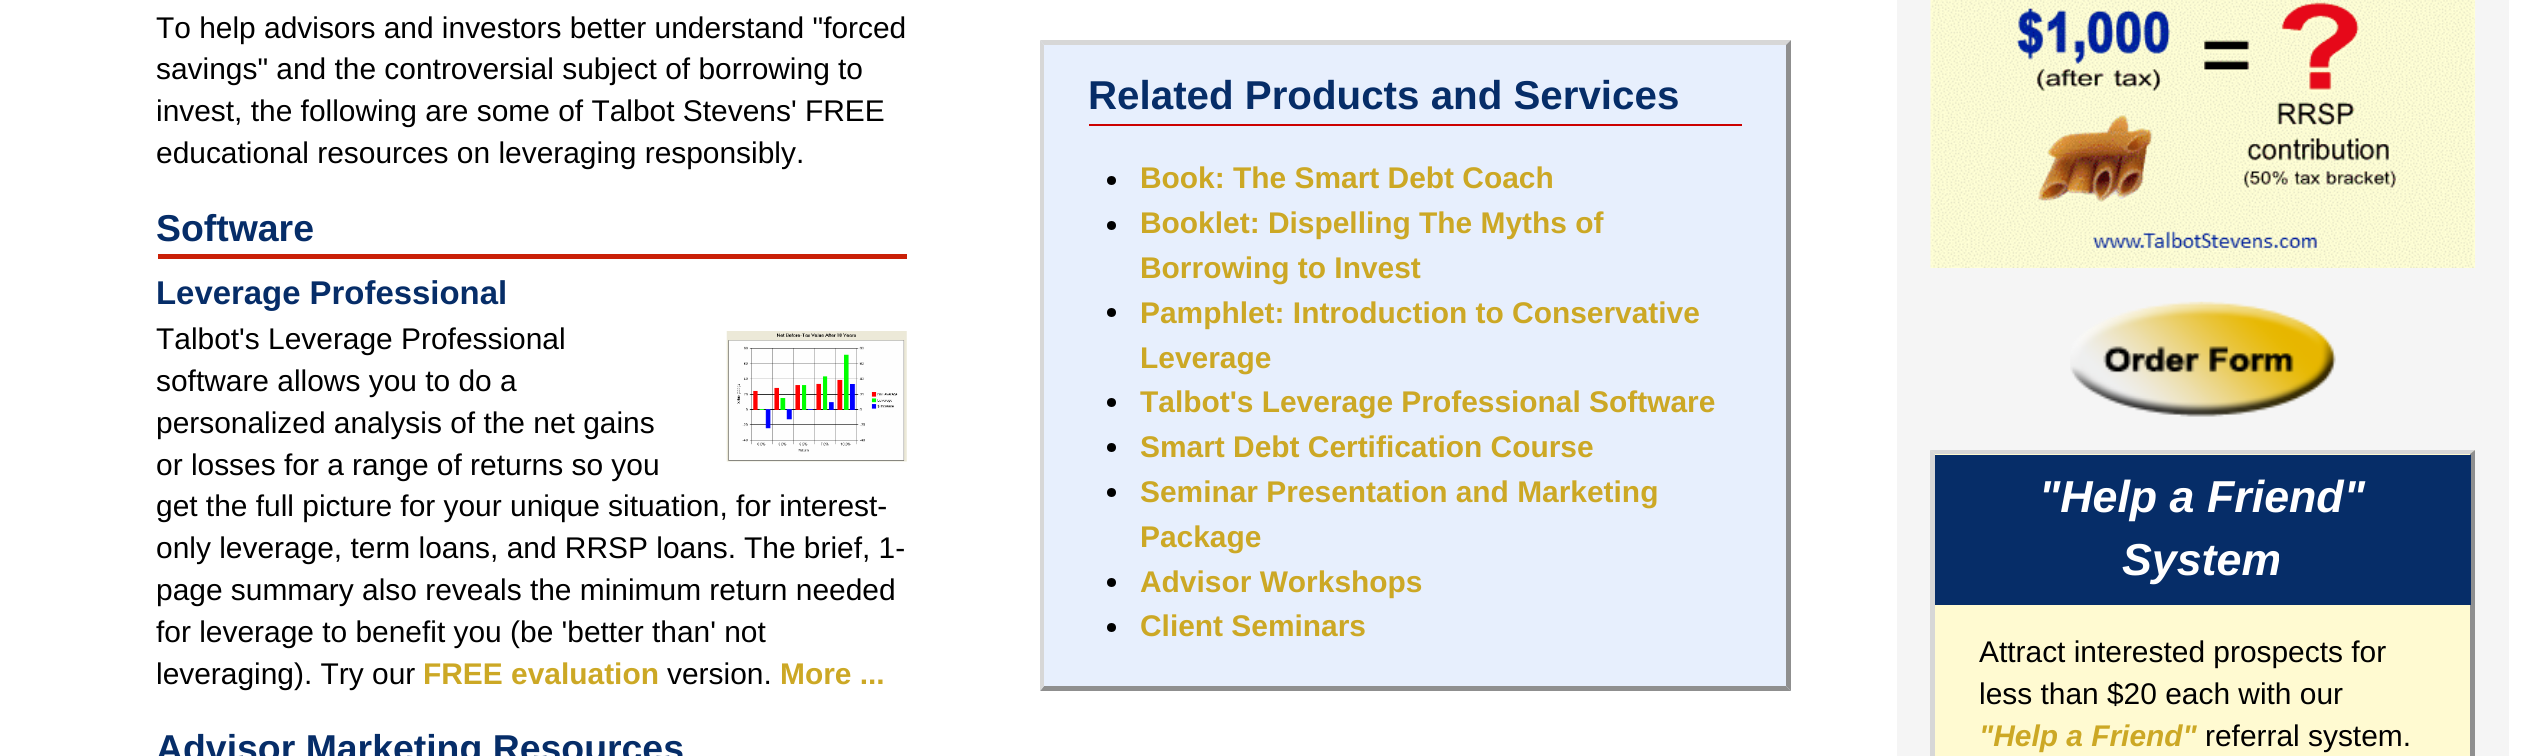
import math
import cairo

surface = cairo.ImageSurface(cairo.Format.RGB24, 2539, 756)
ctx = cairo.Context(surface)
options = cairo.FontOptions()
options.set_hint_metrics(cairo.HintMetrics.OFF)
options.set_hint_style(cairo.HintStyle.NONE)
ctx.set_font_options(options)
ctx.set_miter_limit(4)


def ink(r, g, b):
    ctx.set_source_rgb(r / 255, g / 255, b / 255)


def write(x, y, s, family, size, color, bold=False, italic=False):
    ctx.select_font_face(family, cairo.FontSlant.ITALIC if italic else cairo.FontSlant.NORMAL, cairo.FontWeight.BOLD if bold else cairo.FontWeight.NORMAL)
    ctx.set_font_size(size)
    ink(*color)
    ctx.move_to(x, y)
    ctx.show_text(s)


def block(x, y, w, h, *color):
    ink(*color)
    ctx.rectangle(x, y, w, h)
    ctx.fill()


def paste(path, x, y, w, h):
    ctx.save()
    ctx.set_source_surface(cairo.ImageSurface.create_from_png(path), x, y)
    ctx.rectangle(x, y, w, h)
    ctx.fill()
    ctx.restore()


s1 = dict(family="Liberation Sans", size=29.9, color=(0, 0, 0))
s2 = dict(family="Liberation Sans", size=37.4, color=(6, 45, 104), bold=True)
s3 = dict(family="Liberation Sans", size=32.9, color=(6, 45, 104), bold=True)
s4 = dict(family="Liberation Sans", size=29.9, color=(204, 168, 37), bold=True)
s5 = dict(family="Liberation Sans", size=40.3, color=(6, 45, 104), bold=True)
s6 = dict(family="Liberation Sans", size=44.75, color=(255, 255, 255), bold=True, italic=True)
s7 = dict(family="Liberation Sans", size=29.9, color=(204, 168, 37), bold=True, italic=True)

ink(255, 255, 255)
ctx.paint()
write(156, 38, "To help advisors and investors better understand \"forced", **s1)
write(156, 79, "savings\" and the controversial subject of borrowing to", **s1)
write(156, 121, "invest, the following are some of Talbot Stevens' FREE", **s1)
write(156, 163, "educational resources on leveraging responsibly.", **s1)
block(158, 254, 749, 5, 202, 32, 7)
write(156, 241, "Software", **s2)
write(156, 304, "Leverage Professional", **s3)
write(156, 349, "Talbot's Leverage Professional", **s1)
write(156, 391, "software allows you to do a", **s1)
write(156, 433, "personalized analysis of the net gains", **s1)
write(156, 475, "or losses for a range of returns so you", **s1)
write(156, 516, "get the full picture for your unique situation, for interest-", **s1)
write(156, 558, "only leverage, term loans, and RRSP loans.", **s1)
write(744, 558, "The brief, 1-", **s1)
write(156, 600, "page summary also reveals the minimum return needed", **s1)
write(156, 642, "for leverage to benefit you (be 'better than' not", **s1)
write(156, 684, "leveraging). Try our", **s1)
write(423, 684, "FREE evaluation", **s4)
write(667, 684, "version.", **s1)
write(780, 684, "More ...", **s4)
paste("pic1.png", 726, 331, 181, 131)
write(156, 761, "Advisor Marketing Resources", **s2)
block(1040, 41, 751, 650, 231, 239, 253)
ink(215, 215, 215)
ctx.new_path()
ctx.move_to(1040, 40)
ctx.line_to(1791, 40)
ctx.line_to(1786, 45)
ctx.line_to(1044, 45)
ctx.close_path()
ctx.fill()
ink(143, 143, 143)
ctx.new_path()
ctx.move_to(1791, 40)
ctx.line_to(1791, 691)
ctx.line_to(1786, 686)
ctx.line_to(1786, 45)
ctx.close_path()
ctx.fill()
ctx.new_path()
ctx.move_to(1791, 691)
ctx.line_to(1040, 691)
ctx.line_to(1044, 686)
ctx.line_to(1786, 686)
ctx.close_path()
ctx.fill()
ink(215, 215, 215)
ctx.new_path()
ctx.move_to(1040, 691)
ctx.line_to(1040, 40)
ctx.line_to(1044, 45)
ctx.line_to(1044, 686)
ctx.close_path()
ctx.fill()
block(1089, 124, 653, 2, 204, 0, 0)
write(1088, 109, "Related Products and Services", **s5)
ink(0, 0, 0)
ctx.new_path()
ctx.arc(1111.5, 180.5, 4.5, 0, 2 * math.pi)
ctx.fill()
write(1140, 188, "Book: The Smart Debt Coach", **s4)
ink(0, 0, 0)
ctx.new_path()
ctx.arc(1111.5, 225.5, 4.5, 0, 2 * math.pi)
ctx.fill()
write(1140, 233, "Booklet: Dispelling The Myths of", **s4)
write(1140, 278, "Borrowing to Invest", **s4)
ink(0, 0, 0)
ctx.new_path()
ctx.arc(1111.5, 312.5, 4.5, 0, 2 * math.pi)
ctx.fill()
write(1140, 323, "Pamphlet: Introduction to Conservative", **s4)
write(1140, 368, "Leverage", **s4)
ink(0, 0, 0)
ctx.new_path()
ctx.arc(1111.5, 402.5, 4.5, 0, 2 * math.pi)
ctx.fill()
write(1140, 412, "Talbot's Leverage Professional Software", **s4)
ink(0, 0, 0)
ctx.new_path()
ctx.arc(1111.5, 447.5, 4.5, 0, 2 * math.pi)
ctx.fill()
write(1140, 457, "Smart Debt Certification Course", **s4)
ink(0, 0, 0)
ctx.new_path()
ctx.arc(1111.5, 492.5, 4.5, 0, 2 * math.pi)
ctx.fill()
write(1140, 502, "Seminar Presentation and Marketing", **s4)
write(1140, 547, "Package", **s4)
ink(0, 0, 0)
ctx.new_path()
ctx.arc(1111.5, 582.5, 4.5, 0, 2 * math.pi)
ctx.fill()
write(1140, 592, "Advisor Workshops", **s4)
ink(0, 0, 0)
ctx.new_path()
ctx.arc(1111.5, 627.5, 4.5, 0, 2 * math.pi)
ctx.fill()
write(1140, 636, "Client Seminars", **s4)
block(1897, 0, 612, 756, 245, 245, 245)
paste("pic2.png", 1930, 0, 545, 268)
paste("pic3.png", 2070, 301, 266, 116)
block(1931, 450, 544, 306, 255, 250, 209)
ink(215, 215, 215)
ctx.new_path()
ctx.move_to(1930, 450)
ctx.line_to(2475, 450)
ctx.line_to(2470, 454)
ctx.line_to(1935, 454)
ctx.close_path()
ctx.fill()
ink(143, 143, 143)
ctx.new_path()
ctx.move_to(2475, 450)
ctx.line_to(2475, 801)
ctx.line_to(2470, 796)
ctx.line_to(2470, 454)
ctx.close_path()
ctx.fill()
ink(215, 215, 215)
ctx.new_path()
ctx.move_to(1930, 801)
ctx.line_to(1930, 450)
ctx.line_to(1935, 454)
ctx.line_to(1935, 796)
ctx.close_path()
ctx.fill()
block(1935, 455, 536, 150, 6, 45, 104)
write(2039, 512, "\"Help a Friend\"", **s6)
write(2122, 575, "System", **s6)
write(1979, 662, "Attract interested prospects for", **s1)
write(1979, 704, "less than $20 each with our", **s1)
write(1979, 746, "\"Help a Friend\"", **s7)
write(2205, 746, "referral system.", **s1)
surface.write_to_png("screenshot.png")
